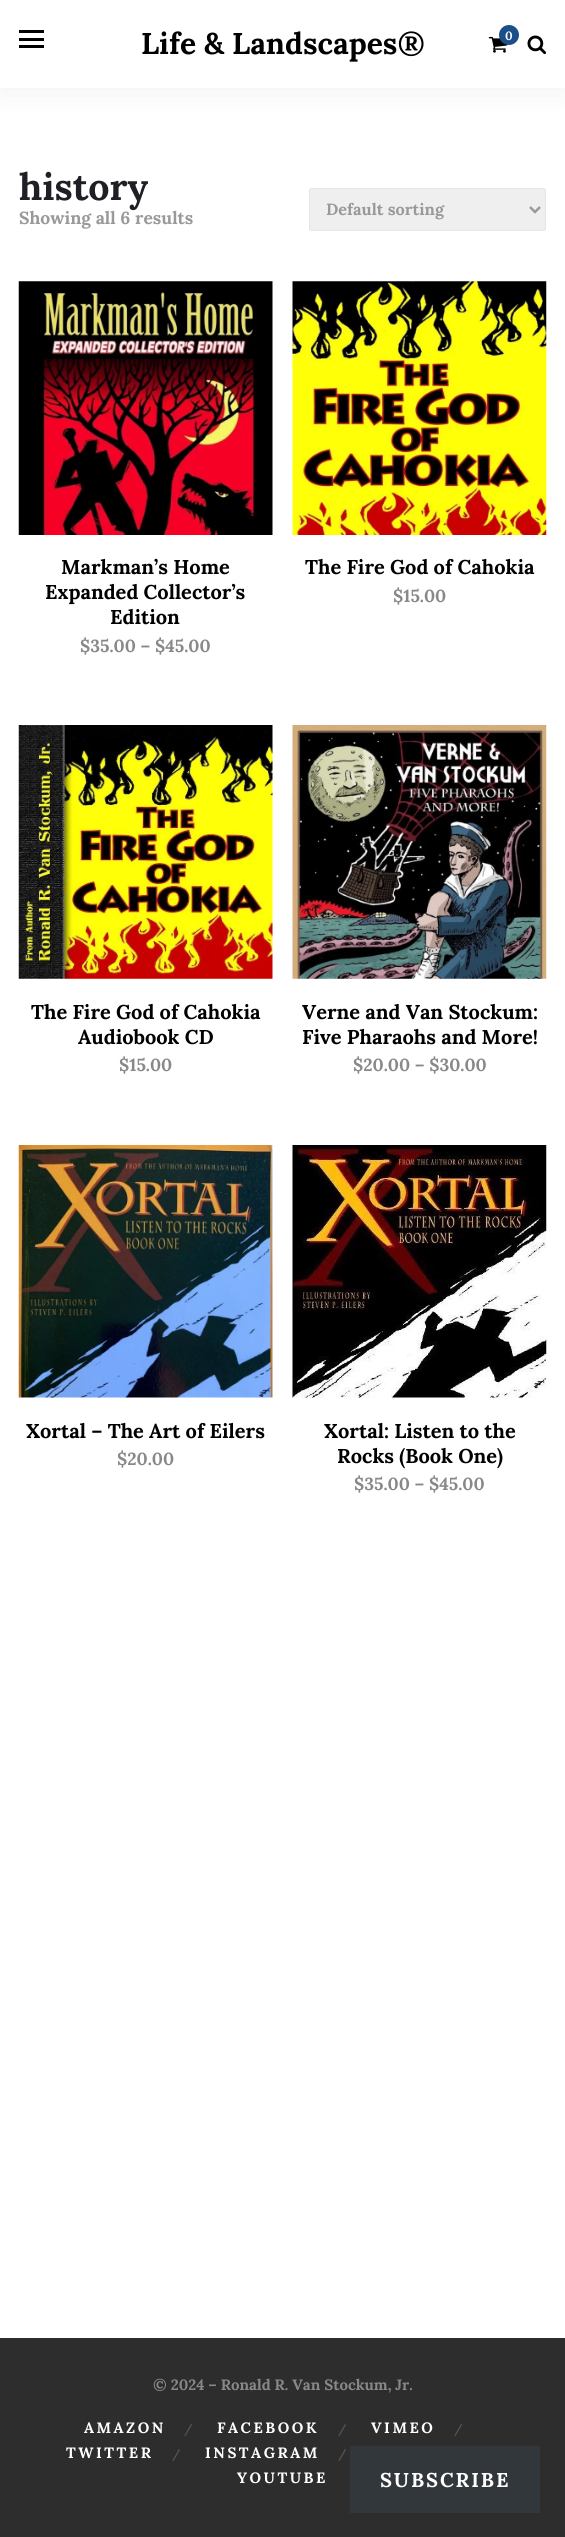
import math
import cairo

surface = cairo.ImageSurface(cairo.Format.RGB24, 565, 2537)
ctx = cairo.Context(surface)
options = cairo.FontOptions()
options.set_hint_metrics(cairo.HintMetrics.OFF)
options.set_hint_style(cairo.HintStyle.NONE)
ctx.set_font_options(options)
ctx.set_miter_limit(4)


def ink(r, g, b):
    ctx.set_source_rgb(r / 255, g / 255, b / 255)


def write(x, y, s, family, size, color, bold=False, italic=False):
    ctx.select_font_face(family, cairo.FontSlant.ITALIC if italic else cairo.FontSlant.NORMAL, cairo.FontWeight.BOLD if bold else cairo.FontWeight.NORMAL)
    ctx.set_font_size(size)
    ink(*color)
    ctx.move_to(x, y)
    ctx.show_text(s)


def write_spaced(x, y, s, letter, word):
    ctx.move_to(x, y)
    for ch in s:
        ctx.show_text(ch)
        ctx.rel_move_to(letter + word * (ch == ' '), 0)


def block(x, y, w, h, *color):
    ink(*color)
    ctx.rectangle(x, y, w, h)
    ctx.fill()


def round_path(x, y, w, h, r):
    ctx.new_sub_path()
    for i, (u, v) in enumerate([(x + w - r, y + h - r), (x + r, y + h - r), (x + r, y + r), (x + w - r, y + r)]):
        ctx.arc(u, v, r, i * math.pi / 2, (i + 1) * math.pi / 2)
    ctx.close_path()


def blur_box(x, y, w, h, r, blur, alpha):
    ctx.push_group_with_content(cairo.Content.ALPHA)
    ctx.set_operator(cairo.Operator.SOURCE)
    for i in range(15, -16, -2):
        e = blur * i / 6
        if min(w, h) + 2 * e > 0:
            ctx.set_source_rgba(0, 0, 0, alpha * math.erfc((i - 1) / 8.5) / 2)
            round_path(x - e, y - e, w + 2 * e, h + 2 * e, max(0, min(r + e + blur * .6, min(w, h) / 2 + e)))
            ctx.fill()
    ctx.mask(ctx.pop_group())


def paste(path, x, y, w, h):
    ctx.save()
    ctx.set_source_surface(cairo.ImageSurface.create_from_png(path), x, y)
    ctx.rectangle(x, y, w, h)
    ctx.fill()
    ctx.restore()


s1 = dict(family="Lora", size=30, color=(0, 0, 0), bold=True, italic=True)
s2 = dict(family="Lora", size=12, color=(255, 255, 255), bold=True, italic=True)
s3 = dict(family="Lora", size=37.5, color=(31, 32, 37), bold=True, italic=True)
s4 = dict(family="Lora", size=16.25, color=(153, 153, 153), bold=True, italic=True)
s5 = dict(family="Lora", size=17.5, color=(153, 153, 153), bold=True, italic=True)
s6 = dict(family="Lora", size=20, color=(0, 0, 0), bold=True, italic=True)
s7 = dict(family="Lora", size=17.5, color=(136, 136, 136), bold=True, italic=True)
s8 = dict(family="Lora", size=15, color=(136, 136, 136), bold=True, italic=True)
s9 = dict(family="Lora", size=12, color=(85, 85, 85), bold=True, italic=True)

ink(255, 255, 255)
ctx.paint()
ink(0, 0, 0)
blur_box(0, 0, 565, 88, 0, 17.5, 0.07)
block(0, 0, 565, 88, 255, 255, 255)
block(19, 30, 25, 3, 0, 0, 0)
block(19, 45, 25, 3, 0, 0, 0)
block(19, 38, 25, 3, 0, 0, 0)
write(141, 54, "Life & Landscapes®", **s1)
paste("pic1.png", 488, 36, 20, 17)
ink(28, 78, 135)
ctx.arc(509, 35, 10, 0, 2 * math.pi)
ctx.fill()
write(505, 40, "0", **s2)
paste("pic2.png", 527, 35, 20, 20)
write(19, 200, "history", **s3)
ink(239, 239, 239)
round_path(309.5, 188.5, 236, 42, 2)
ctx.fill_preserve()
ink(229, 229, 229)
ctx.set_line_width(1)
ctx.stroke()
ctx.new_path()
ctx.move_to(530, 207)
ctx.line_to(535, 212)
ctx.line_to(540, 207)
ink(153, 153, 153)
ctx.set_line_width(2.5)
ctx.stroke()
write(326, 215, "Default sorting", **s4)
write(19, 224, "Showing all 6 results", **s5)
paste("pic3.png", 18, 281, 255, 254)
write(61, 574, "Markman’s Home", **s6)
write(45, 599, "Expanded Collector’s", **s6)
write(110, 624, "Edition", **s6)
write(80, 652, "$35.00 – $45.00", **s7)
paste("pic4.png", 292, 281, 255, 254)
write(305, 574, "The Fire God of Cahokia", **s6)
write(393, 602, "$15.00", **s7)
paste("pic5.png", 18, 725, 255, 254)
write(31, 1019, "The Fire God of Cahokia", **s6)
write(78, 1044, "Audiobook CD", **s6)
write(119, 1071, "$15.00", **s7)
paste("pic6.png", 292, 725, 255, 254)
write(302, 1019, "Verne and Van Stockum:", **s6)
write(302, 1044, "Five Pharaohs and More!", **s6)
write(353, 1071, "$20.00 – $30.00", **s7)
paste("pic7.png", 18, 1145, 255, 253)
write(26, 1438, "Xortal – The Art of Eilers", **s6)
write(117, 1465, "$20.00", **s7)
paste("pic8.png", 292, 1145, 255, 253)
write(324, 1438, "Xortal: Listen to the", **s6)
write(337, 1463, "Rocks (Book One)", **s6)
write(354, 1490, "$35.00 – $45.00", **s7)
block(0, 2338, 565, 199, 45, 45, 45)
write(153, 2390, "© 2024 – Ronald R. Van Stockum, Jr.", **s8)
ink(255, 255, 255)
write_spaced(84, 2433, "AMAZON", 2.5, 0)
write(184, 2433, "/", **s9)
ctx.set_font_size(15)
ink(255, 255, 255)
write_spaced(217, 2433, "FACEBOOK", 2.5, 0)
write(338, 2433, "/", **s9)
ctx.set_font_size(15)
ink(255, 255, 255)
write_spaced(371, 2433, "VIMEO", 2.5, 0)
write(454, 2433, "/", **s9)
ctx.set_font_size(15)
ink(255, 255, 255)
write_spaced(66, 2458, "TWITTER", 2.5, 0)
write(172, 2458, "/", **s9)
ctx.set_font_size(15)
ink(255, 255, 255)
write_spaced(205, 2458, "INSTAGRAM", 2.5, 0)
write(338, 2458, "/", **s9)
ctx.set_font_size(15)
ink(255, 255, 255)
write_spaced(237, 2483, "YOUTUBE", 2.5, 0)
block(350, 2446, 190, 67, 50, 55, 60)
ctx.set_font_size(20)
ink(255, 255, 255)
write_spaced(380, 2487, "SUBSCRIBE", 1.9, 0)
surface.write_to_png("screenshot.png")
